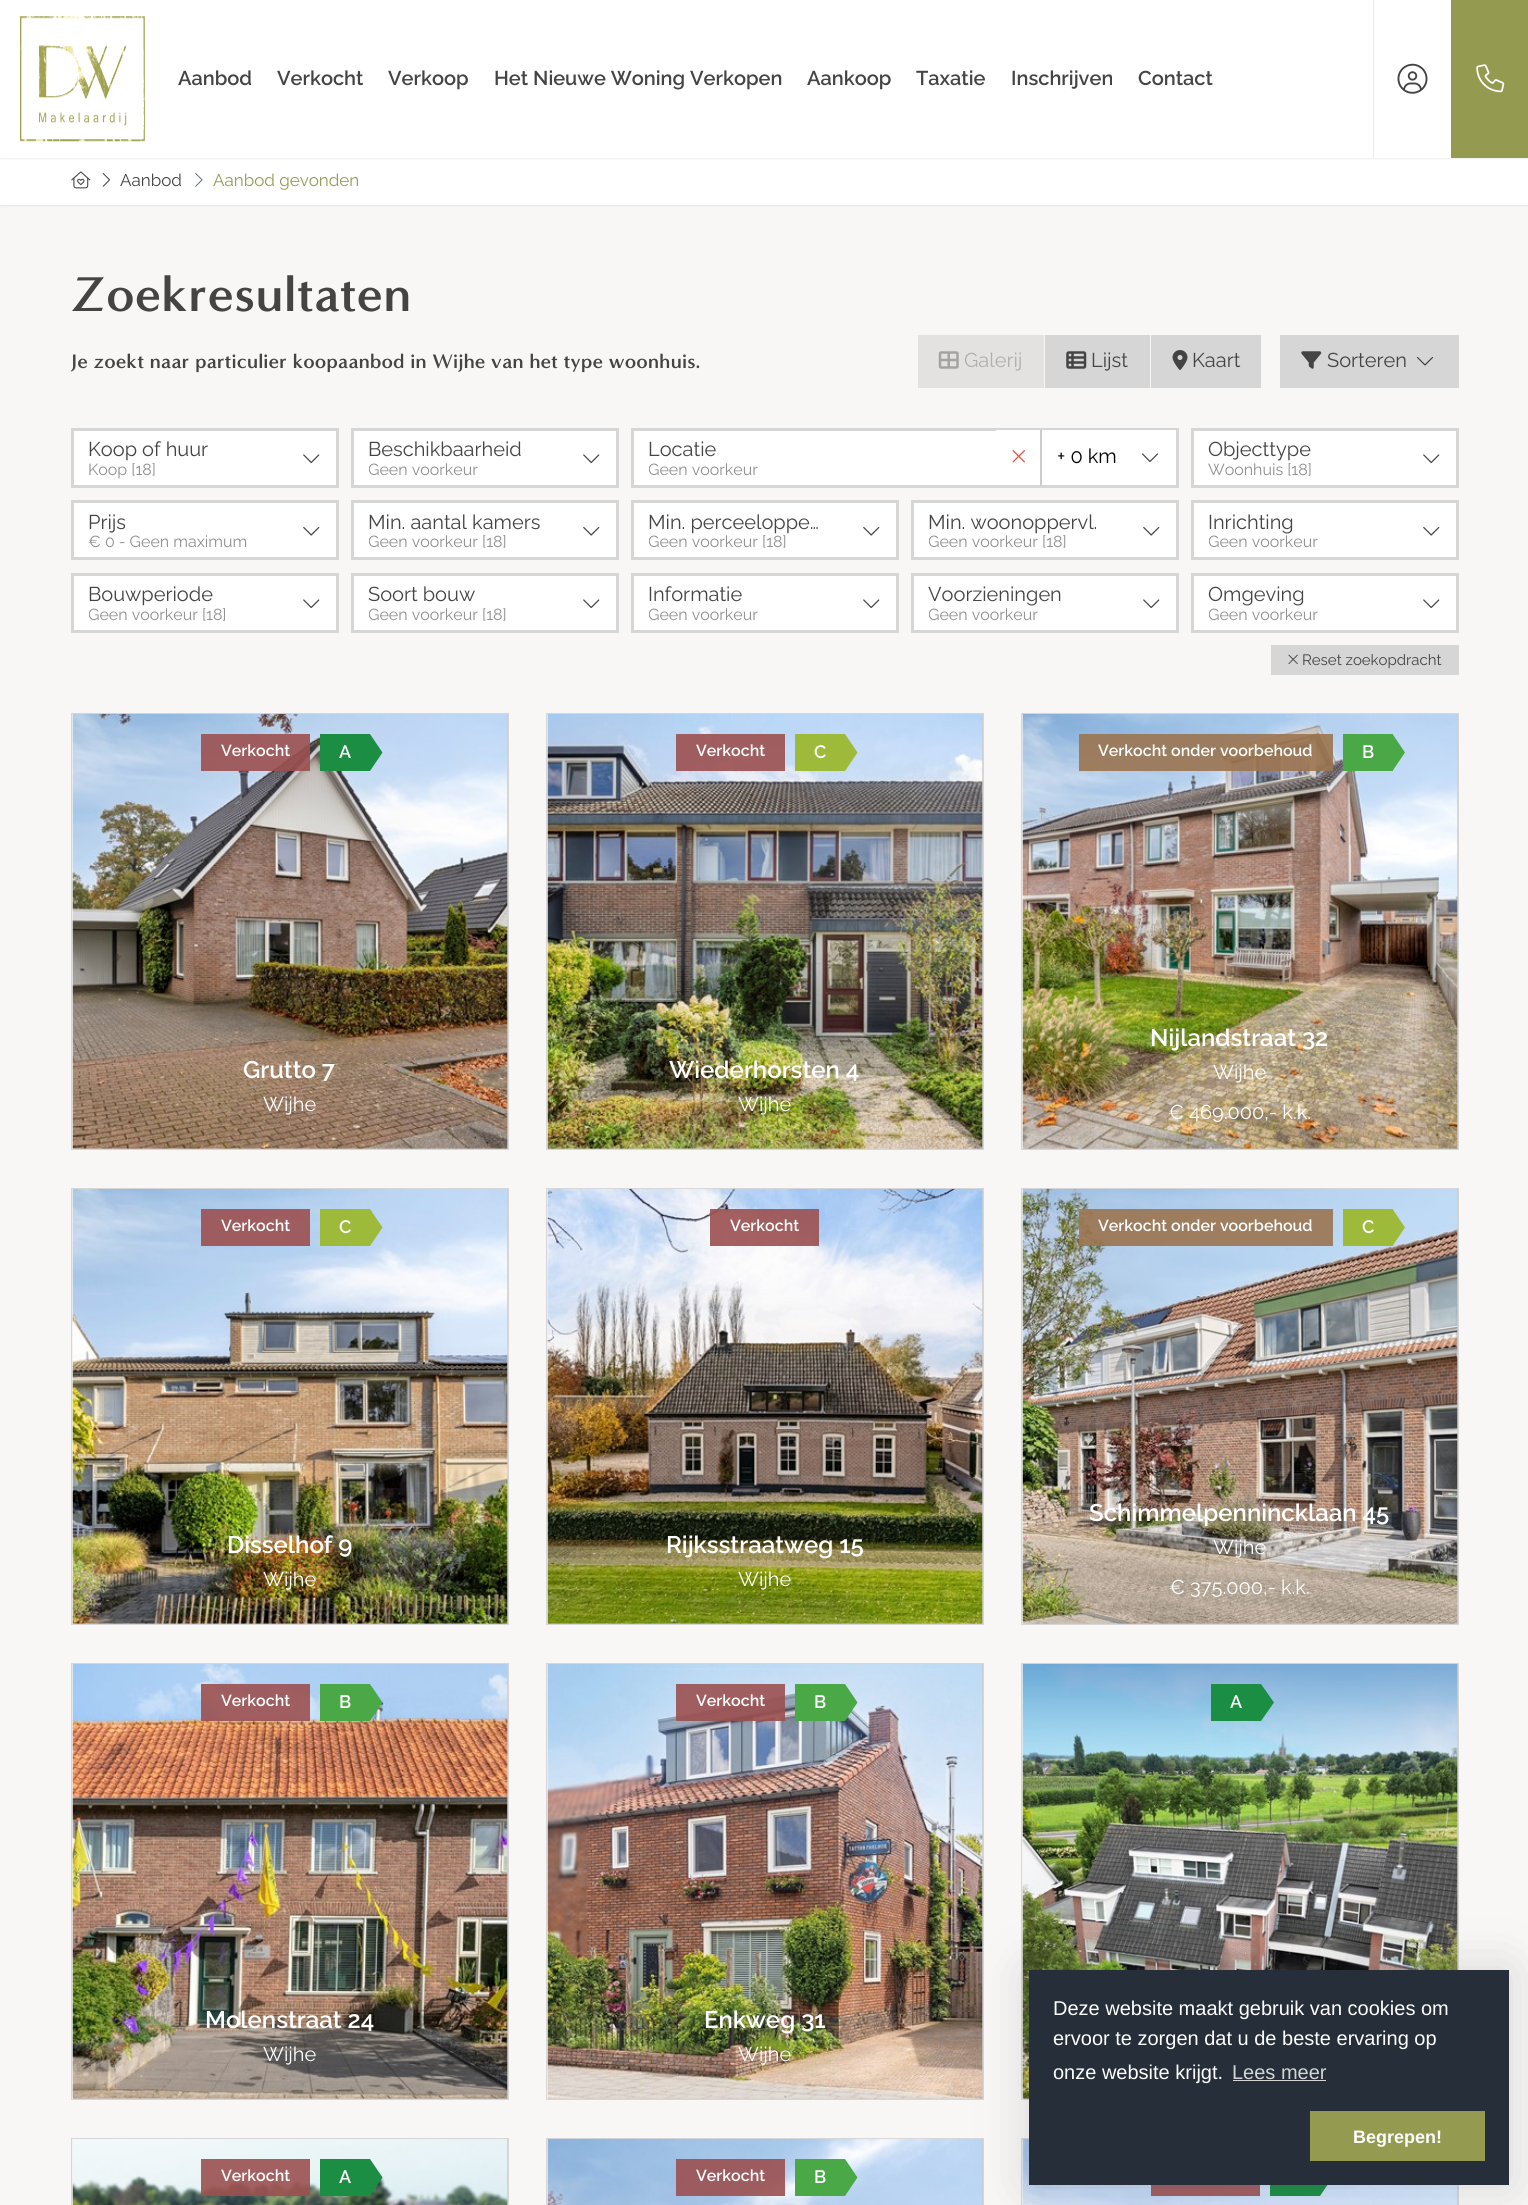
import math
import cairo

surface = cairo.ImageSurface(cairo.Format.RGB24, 1528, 2205)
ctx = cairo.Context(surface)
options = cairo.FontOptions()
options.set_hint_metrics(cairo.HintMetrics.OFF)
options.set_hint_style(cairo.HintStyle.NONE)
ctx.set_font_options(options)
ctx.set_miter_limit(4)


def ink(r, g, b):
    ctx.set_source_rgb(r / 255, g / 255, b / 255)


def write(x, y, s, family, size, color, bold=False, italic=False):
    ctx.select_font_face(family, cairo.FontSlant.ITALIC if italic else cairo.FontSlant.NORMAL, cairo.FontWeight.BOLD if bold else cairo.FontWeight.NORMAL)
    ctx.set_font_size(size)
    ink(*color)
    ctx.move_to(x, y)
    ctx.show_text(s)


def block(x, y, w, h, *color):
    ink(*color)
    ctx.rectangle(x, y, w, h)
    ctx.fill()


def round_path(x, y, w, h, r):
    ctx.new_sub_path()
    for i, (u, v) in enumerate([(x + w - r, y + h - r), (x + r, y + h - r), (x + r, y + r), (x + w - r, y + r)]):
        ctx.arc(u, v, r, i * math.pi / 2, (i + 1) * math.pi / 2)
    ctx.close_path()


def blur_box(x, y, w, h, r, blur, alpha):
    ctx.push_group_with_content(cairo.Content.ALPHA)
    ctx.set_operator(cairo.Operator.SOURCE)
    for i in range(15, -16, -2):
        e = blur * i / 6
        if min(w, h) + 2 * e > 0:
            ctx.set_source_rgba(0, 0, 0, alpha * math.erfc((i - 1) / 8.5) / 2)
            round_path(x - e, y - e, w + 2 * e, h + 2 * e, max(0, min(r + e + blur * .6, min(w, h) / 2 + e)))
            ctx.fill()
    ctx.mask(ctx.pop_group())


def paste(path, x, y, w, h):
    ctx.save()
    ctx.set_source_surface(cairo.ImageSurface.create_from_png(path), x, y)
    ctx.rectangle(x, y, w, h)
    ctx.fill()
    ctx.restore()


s1 = dict(family="Raleway SemiBold", size=20, color=(68, 68, 68))
s2 = dict(family="Raleway", size=17, color=(68, 68, 68))
s3 = dict(family="Raleway", size=17, color=(148, 155, 80))
s4 = dict(family="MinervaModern", size=50, color=(68, 68, 68), bold=True)
s5 = dict(family="MinervaModern", size=20, color=(68, 68, 68), bold=True)
s6 = dict(family="Raleway", size=20, color=(177, 175, 174))
s7 = dict(family="Raleway", size=20, color=(68, 68, 68))
s8 = dict(family="Raleway", size=16, color=(143, 143, 143))
s9 = dict(family="Raleway", size=20, color=(0, 0, 0))
s10 = dict(family="Raleway", size=15, color=(68, 68, 68))
s11 = dict(family="Raleway SemiBold", size=16, color=(255, 255, 255))
s12 = dict(family="Raleway SemiBold", size=18, color=(255, 255, 255))
s13 = dict(family="Raleway SemiBold", size=24, color=(255, 255, 255))
s14 = dict(family="Raleway", size=20, color=(255, 255, 255))
s15 = dict(family="Liberation Sans", size=20, color=(255, 255, 255))
s16 = dict(family="Liberation Sans", size=20, color=(211, 213, 215))
s17 = dict(family="Liberation Sans", size=18, color=(255, 255, 255), bold=True)

ink(249, 247, 245)
ctx.paint()
ink(0, 0, 0)
blur_box(0, 159, 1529, 47, 0, 1, 0.07)
block(0, 158, 1528, 47, 255, 255, 255)
ink(0, 0, 0)
blur_box(0, 1, 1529, 158, 0, 1, 0.07)
block(0, 0, 1451, 158, 255, 255, 255)
paste("pic1.png", 20, 16, 125, 126)
write(178, 85, "Aanbod", **s1)
write(277, 85, "Verkocht", **s1)
write(388, 85, "Verkoop", **s1)
write(494, 85, "Het Nieuwe Woning Verkopen", **s1)
write(807, 85, "Aankoop", **s1)
write(916, 85, "Taxatie", **s1)
write(1011, 85, "Inschrijven", **s1)
write(1138, 85, "Contact", **s1)
block(1373, 0, 1, 158, 237, 234, 232)
paste("pic2.png", 1397, 63, 31, 31)
block(1451, 0, 77, 158, 148, 155, 80)
paste("pic3.png", 1476, 64, 29, 29)
paste("pic4.png", 71, 171, 20, 18)
paste("pic5.png", 102, 173, 8, 14)
write(120, 186, "Aanbod", **s2)
paste("pic6.png", 195, 173, 8, 14)
write(213, 186, "Aanbod gevonden", **s3)
write(71, 311, "Zoekresultaten", **s4)
write(71, 368, "Je zoekt naar particulier koopaanbod in Wijhe van het type woonhuis.", **s5)
block(918, 335, 126, 53, 227, 226, 225)
paste("pic7.png", 938, 351, 21, 18)
write(964, 367, "Galerij", **s6)
block(1045, 335, 105, 53, 214, 214, 214)
paste("pic8.png", 1066, 351, 21, 18)
write(1091, 367, "Lijst", **s7)
block(1151, 335, 110, 53, 214, 214, 214)
paste("pic9.png", 1172, 350, 16, 20)
write(1192, 367, "Kaart", **s7)
block(1280, 335, 179, 53, 214, 214, 214)
paste("pic10.png", 1301, 351, 21, 18)
write(1327, 367, "Sorteren", **s7)
paste("pic11.png", 1416, 356, 18, 10)
ink(255, 255, 255)
ctx.rectangle(72.5, 429.5, 265, 57)
ctx.fill_preserve()
ink(214, 214, 214)
ctx.set_line_width(3)
ctx.stroke()
write(88, 456, "Koop of huur", **s7)
write(88, 475, "Koop [18]", **s8)
paste("pic12.png", 303, 454, 17, 10)
ink(255, 255, 255)
ctx.rectangle(352.5, 429.5, 265, 57)
ctx.fill_preserve()
ink(214, 214, 214)
ctx.stroke()
write(368, 456, "Beschikbaarheid", **s7)
ctx.save()
ctx.rectangle(369, 463, 164, 16)
ctx.clip()
write(368, 475, "Geen voorkeur", **s8)
ctx.restore()
paste("pic12.png", 583, 454, 17, 10)
block(634, 431, 362, 54, 255, 255, 255)
ctx.rectangle(632.5, 429.5, 545, 57)
ink(214, 214, 214)
ctx.stroke()
write(648, 456, "Locatie", **s7)
ctx.save()
ctx.rectangle(649, 463, 164, 16)
ctx.clip()
write(648, 475, "Geen voorkeur", **s8)
ctx.restore()
block(996, 430, 44, 55, 255, 255, 255)
paste("pic13.png", 1012, 450, 13, 13)
block(1040, 428, 136, 60, 255, 255, 255)
ink(214, 214, 214)
ctx.new_path()
ctx.move_to(1040, 428)
ctx.line_to(1179, 428)
ctx.line_to(1176, 430)
ctx.line_to(1042, 430)
ctx.close_path()
ctx.fill()
ctx.new_path()
ctx.move_to(1179, 488)
ctx.line_to(1040, 488)
ctx.line_to(1042, 485)
ctx.line_to(1176, 485)
ctx.close_path()
ctx.fill()
ink(204, 204, 204)
ctx.new_path()
ctx.move_to(1040, 488)
ctx.line_to(1040, 428)
ctx.line_to(1042, 430)
ctx.line_to(1042, 485)
ctx.close_path()
ctx.fill()
write(1057, 463, "+ 0 km", **s9)
paste("pic14.png", 1142, 453, 16, 9)
ink(255, 255, 255)
ctx.rectangle(1192.5, 429.5, 265, 57)
ctx.fill_preserve()
ink(214, 214, 214)
ctx.stroke()
write(1208, 456, "Objecttype", **s7)
write(1208, 475, "Woonhuis [18]", **s8)
paste("pic12.png", 1423, 454, 17, 10)
ink(255, 255, 255)
ctx.rectangle(72.5, 501.5, 265, 57)
ctx.fill_preserve()
ink(214, 214, 214)
ctx.stroke()
write(88, 529, "Prijs", **s7)
write(88, 547, "€ 0 - Geen maximum", **s8)
paste("pic15.png", 303, 526, 17, 10)
ink(255, 255, 255)
ctx.rectangle(352.5, 501.5, 265, 57)
ctx.fill_preserve()
ink(214, 214, 214)
ctx.stroke()
write(368, 529, "Min. aantal kamers", **s7)
ctx.save()
ctx.rectangle(369, 535, 164, 16)
ctx.clip()
write(368, 547, "Geen voorkeur", **s8)
ctx.restore()
write(482, 547, "[18]", **s8)
paste("pic15.png", 583, 526, 17, 10)
ink(255, 255, 255)
ctx.rectangle(632.5, 501.5, 265, 57)
ctx.fill_preserve()
ink(214, 214, 214)
ctx.stroke()
write(648, 529, "Min. perceeloppe…", **s7)
ctx.save()
ctx.rectangle(649, 535, 164, 16)
ctx.clip()
write(648, 547, "Geen voorkeur", **s8)
ctx.restore()
write(762, 547, "[18]", **s8)
paste("pic15.png", 863, 526, 17, 10)
ink(255, 255, 255)
ctx.rectangle(912.5, 501.5, 265, 57)
ctx.fill_preserve()
ink(214, 214, 214)
ctx.stroke()
write(928, 529, "Min. woonoppervl.", **s7)
ctx.save()
ctx.rectangle(929, 535, 164, 16)
ctx.clip()
write(928, 547, "Geen voorkeur", **s8)
ctx.restore()
write(1042, 547, "[18]", **s8)
paste("pic15.png", 1143, 526, 17, 10)
ink(255, 255, 255)
ctx.rectangle(1192.5, 501.5, 265, 57)
ctx.fill_preserve()
ink(214, 214, 214)
ctx.stroke()
write(1208, 529, "Inrichting", **s7)
ctx.save()
ctx.rectangle(1209, 535, 164, 16)
ctx.clip()
write(1208, 547, "Geen voorkeur", **s8)
ctx.restore()
paste("pic15.png", 1423, 526, 17, 10)
ink(255, 255, 255)
ctx.rectangle(72.5, 574.5, 265, 57)
ctx.fill_preserve()
ink(214, 214, 214)
ctx.stroke()
write(88, 601, "Bouwperiode", **s7)
ctx.save()
ctx.rectangle(89, 608, 164, 16)
ctx.clip()
write(88, 620, "Geen voorkeur [18]", **s8)
ctx.restore()
paste("pic12.png", 303, 599, 17, 10)
ink(255, 255, 255)
ctx.rectangle(352.5, 574.5, 265, 57)
ctx.fill_preserve()
ink(214, 214, 214)
ctx.stroke()
write(368, 601, "Soort bouw", **s7)
ctx.save()
ctx.rectangle(369, 608, 164, 16)
ctx.clip()
write(368, 620, "Geen voorkeur", **s8)
ctx.restore()
write(482, 620, "[18]", **s8)
paste("pic12.png", 583, 599, 17, 10)
ink(255, 255, 255)
ctx.rectangle(632.5, 574.5, 265, 57)
ctx.fill_preserve()
ink(214, 214, 214)
ctx.stroke()
write(648, 601, "Informatie", **s7)
ctx.save()
ctx.rectangle(649, 608, 164, 16)
ctx.clip()
write(648, 620, "Geen voorkeur", **s8)
ctx.restore()
paste("pic12.png", 863, 599, 17, 10)
ink(255, 255, 255)
ctx.rectangle(912.5, 574.5, 265, 57)
ctx.fill_preserve()
ink(214, 214, 214)
ctx.stroke()
write(928, 601, "Voorzieningen", **s7)
ctx.save()
ctx.rectangle(929, 608, 164, 16)
ctx.clip()
write(928, 620, "Geen voorkeur", **s8)
ctx.restore()
paste("pic12.png", 1143, 599, 17, 10)
ink(255, 255, 255)
ctx.rectangle(1192.5, 574.5, 265, 57)
ctx.fill_preserve()
ink(214, 214, 214)
ctx.stroke()
write(1208, 601, "Omgeving", **s7)
ctx.save()
ctx.rectangle(1209, 608, 164, 16)
ctx.clip()
write(1208, 620, "Geen voorkeur", **s8)
ctx.restore()
paste("pic12.png", 1423, 599, 17, 10)
block(1271, 645, 188, 30, 214, 214, 214)
paste("pic16.png", 1288, 654, 10, 10)
write(1302, 665, "Reset zoekopdracht", **s10)
block(72, 714, 1, 435, 242, 242, 242)
ctx.rectangle(71.5, 713.5, 437, 436)
ink(214, 214, 214)
ctx.set_line_width(1)
ctx.stroke()
block(73, 714, 435, 435, 204, 204, 204)
paste("pic17.png", 72, 713, 436, 436)
ctx.set_source_rgba(0.608, 0.314, 0.314, 0.9)
ctx.rectangle(201, 734, 109, 37)
ctx.fill()
write(221, 756, "Verkocht", **s11)
block(320, 734, 50, 37, 27, 142, 67)
write(339, 758, "A", **s12)
ink(27, 142, 67)
ctx.new_path()
ctx.move_to(370, 771)
ctx.line_to(370, 734)
ctx.line_to(382.5, 752.5)
ctx.close_path()
ctx.fill()
write(243, 1078, "Grutto 7", **s13)
write(263, 1111, "Wijhe", **s14)
block(547, 714, 1, 435, 242, 242, 242)
ctx.rectangle(546.5, 713.5, 437, 436)
ink(214, 214, 214)
ctx.stroke()
block(548, 714, 435, 435, 204, 204, 204)
paste("pic18.png", 547, 714, 436, 435)
ctx.set_source_rgba(0.608, 0.314, 0.314, 0.9)
ctx.rectangle(676, 734, 109, 37)
ctx.fill()
write(696, 756, "Verkocht", **s11)
block(795, 734, 50, 37, 157, 186, 58)
write(814, 758, "C", **s12)
ink(157, 186, 58)
ctx.new_path()
ctx.move_to(845, 771)
ctx.line_to(845, 734)
ctx.line_to(857.5, 752.5)
ctx.close_path()
ctx.fill()
write(669, 1078, "Wiederhorsten 4", **s13)
write(738, 1111, "Wijhe", **s14)
block(1022, 714, 1, 435, 242, 242, 242)
ctx.rectangle(1021.5, 713.5, 437, 436)
ink(214, 214, 214)
ctx.stroke()
block(1023, 714, 435, 435, 204, 204, 204)
paste("pic19.png", 1022, 713, 436, 436)
ctx.set_source_rgba(0.608, 0.459, 0.314, 0.9)
ctx.rectangle(1079, 734, 254, 37)
ctx.fill()
write(1098, 756, "Verkocht onder voorbehoud", **s11)
block(1343, 734, 50, 37, 74, 168, 71)
write(1362, 758, "B", **s12)
ink(74, 168, 71)
ctx.new_path()
ctx.move_to(1392.5, 771)
ctx.line_to(1392.5, 734)
ctx.line_to(1405, 752.5)
ctx.close_path()
ctx.fill()
write(1150, 1046, "Nijlandstraat 32", **s13)
write(1213, 1079, "Wijhe", **s14)
write(1168, 1119, "€ 469.000,- k.k.", **s14)
block(72, 1189, 1, 435, 242, 242, 242)
ctx.rectangle(71.5, 1188.5, 437, 436)
ink(214, 214, 214)
ctx.stroke()
block(73, 1189, 435, 435, 204, 204, 204)
paste("pic20.png", 72, 1189, 436, 435)
ctx.set_source_rgba(0.608, 0.314, 0.314, 0.9)
ctx.rectangle(201, 1209, 109, 37)
ctx.fill()
write(221, 1231, "Verkocht", **s11)
block(320, 1209, 50, 37, 157, 186, 58)
write(339, 1233, "C", **s12)
ink(157, 186, 58)
ctx.new_path()
ctx.move_to(370, 1246)
ctx.line_to(370, 1209)
ctx.line_to(382.5, 1227.5)
ctx.close_path()
ctx.fill()
write(227, 1553, "Disselhof 9", **s13)
write(263, 1586, "Wijhe", **s14)
block(547, 1189, 1, 435, 242, 242, 242)
ctx.rectangle(546.5, 1188.5, 437, 436)
ink(214, 214, 214)
ctx.stroke()
block(548, 1189, 435, 435, 204, 204, 204)
paste("pic21.png", 547, 1188, 436, 436)
ctx.set_source_rgba(0.608, 0.314, 0.314, 0.9)
ctx.rectangle(710, 1209, 109, 37)
ctx.fill()
write(730, 1231, "Verkocht", **s11)
write(666, 1553, "Rijksstraatweg 15", **s13)
write(738, 1586, "Wijhe", **s14)
block(1022, 1189, 1, 435, 242, 242, 242)
ctx.rectangle(1021.5, 1188.5, 437, 436)
ink(214, 214, 214)
ctx.stroke()
block(1023, 1189, 435, 435, 204, 204, 204)
paste("pic22.png", 1022, 1188, 436, 436)
ctx.set_source_rgba(0.608, 0.459, 0.314, 0.9)
ctx.rectangle(1079, 1209, 254, 37)
ctx.fill()
write(1098, 1231, "Verkocht onder voorbehoud", **s11)
block(1343, 1209, 50, 37, 157, 186, 58)
write(1362, 1233, "C", **s12)
ink(157, 186, 58)
ctx.new_path()
ctx.move_to(1392.5, 1246)
ctx.line_to(1392.5, 1209)
ctx.line_to(1405, 1227.5)
ctx.close_path()
ctx.fill()
write(1089, 1521, "Schimmelpennincklaan 45", **s13)
write(1213, 1554, "Wijhe", **s14)
write(1169, 1594, "€ 375.000,- k.k.", **s14)
block(72, 1664, 1, 435, 242, 242, 242)
ctx.rectangle(71.5, 1663.5, 437, 436)
ink(214, 214, 214)
ctx.stroke()
block(73, 1664, 435, 435, 204, 204, 204)
paste("pic23.png", 72, 1664, 436, 435)
ctx.set_source_rgba(0.608, 0.314, 0.314, 0.9)
ctx.rectangle(201, 1684, 109, 37)
ctx.fill()
write(221, 1706, "Verkocht", **s11)
block(320, 1684, 50, 37, 74, 168, 71)
write(339, 1708, "B", **s12)
ink(74, 168, 71)
ctx.new_path()
ctx.move_to(370, 1721)
ctx.line_to(370, 1684)
ctx.line_to(382.5, 1702.5)
ctx.close_path()
ctx.fill()
write(205, 2028, "Molenstraat 24", **s13)
write(263, 2061, "Wijhe", **s14)
block(547, 1664, 1, 435, 242, 242, 242)
ctx.rectangle(546.5, 1663.5, 437, 436)
ink(214, 214, 214)
ctx.stroke()
block(548, 1664, 435, 435, 204, 204, 204)
paste("pic24.png", 547, 1664, 436, 435)
ctx.set_source_rgba(0.608, 0.314, 0.314, 0.9)
ctx.rectangle(676, 1684, 109, 37)
ctx.fill()
write(696, 1706, "Verkocht", **s11)
block(795, 1684, 50, 37, 74, 168, 71)
write(814, 1708, "B", **s12)
ink(74, 168, 71)
ctx.new_path()
ctx.move_to(845, 1721)
ctx.line_to(845, 1684)
ctx.line_to(857.5, 1702.5)
ctx.close_path()
ctx.fill()
write(704, 2028, "Enkweg 31", **s13)
write(738, 2061, "Wijhe", **s14)
block(1022, 1664, 1, 435, 242, 242, 242)
ctx.rectangle(1021.5, 1663.5, 437, 436)
ink(214, 214, 214)
ctx.stroke()
block(1023, 1664, 435, 435, 204, 204, 204)
paste("pic25.png", 1022, 1663, 436, 436)
block(1211, 1684, 50, 37, 27, 142, 67)
write(1230, 1708, "A", **s12)
ink(27, 142, 67)
ctx.new_path()
ctx.move_to(1261, 1721)
ctx.line_to(1261, 1684)
ctx.line_to(1274, 1702.5)
ctx.close_path()
ctx.fill()
block(72, 2139, 1, 66, 242, 242, 242)
ctx.rectangle(71.5, 2138.5, 437, 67)
ink(214, 214, 214)
ctx.stroke()
block(507, 2139, 1, 66, 204, 204, 204)
paste("pic26.png", 72, 2139, 436, 66)
ctx.set_source_rgba(0.608, 0.314, 0.314, 0.9)
ctx.rectangle(201, 2159, 109, 37)
ctx.fill()
write(221, 2181, "Verkocht", **s11)
block(320, 2159, 50, 37, 27, 142, 67)
write(339, 2183, "A", **s12)
ink(27, 142, 67)
ctx.new_path()
ctx.move_to(370, 2196)
ctx.line_to(370, 2159)
ctx.line_to(382.5, 2177.5)
ctx.close_path()
ctx.fill()
block(547, 2139, 1, 66, 242, 242, 242)
ctx.rectangle(546.5, 2138.5, 437, 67)
ink(214, 214, 214)
ctx.stroke()
block(982, 2139, 1, 66, 204, 204, 204)
paste("pic27.png", 547, 2138, 436, 67)
ctx.set_source_rgba(0.608, 0.314, 0.314, 0.9)
ctx.rectangle(676, 2159, 109, 37)
ctx.fill()
write(696, 2181, "Verkocht", **s11)
block(795, 2159, 50, 37, 74, 168, 71)
write(814, 2183, "B", **s12)
ink(74, 168, 71)
ctx.new_path()
ctx.move_to(845, 2196)
ctx.line_to(845, 2159)
ctx.line_to(857.5, 2177.5)
ctx.close_path()
ctx.fill()
block(1022, 2139, 1, 66, 242, 242, 242)
ctx.rectangle(1021.5, 2138.5, 437, 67)
ink(214, 214, 214)
ctx.stroke()
block(1457, 2185, 1, 20, 204, 204, 204)
paste("pic28.png", 1022, 2139, 436, 66)
ctx.set_source_rgba(0.608, 0.314, 0.314, 0.9)
ctx.rectangle(1151, 2185, 109, 11)
ctx.fill()
block(1270, 2185, 50, 11, 27, 142, 67)
ctx.new_path()
ctx.move_to(1320, 2196)
ctx.line_to(1320, 2159)
ctx.line_to(1332.5, 2177.5)
ctx.close_path()
ctx.fill()
ink(61, 65, 84)
blur_box(1029, 1970, 480, 215, 0, 25, 0.2)
block(1029, 1970, 480, 215, 37, 46, 57)
write(1053, 2015, "Deze website maakt gebruik van cookies om", **s15)
write(1053, 2045, "ervoor te zorgen dat u de beste ervaring op", **s15)
write(1053, 2079, "onze website krijgt.", **s15)
write(1232, 2079, "Lees meer", **s16)
block(1233, 2080, 93, 1, 211, 213, 215)
block(1310, 2111, 175, 50, 148, 155, 80)
write(1353, 2143, "Begrepen!", **s17)
surface.write_to_png("screenshot.png")
